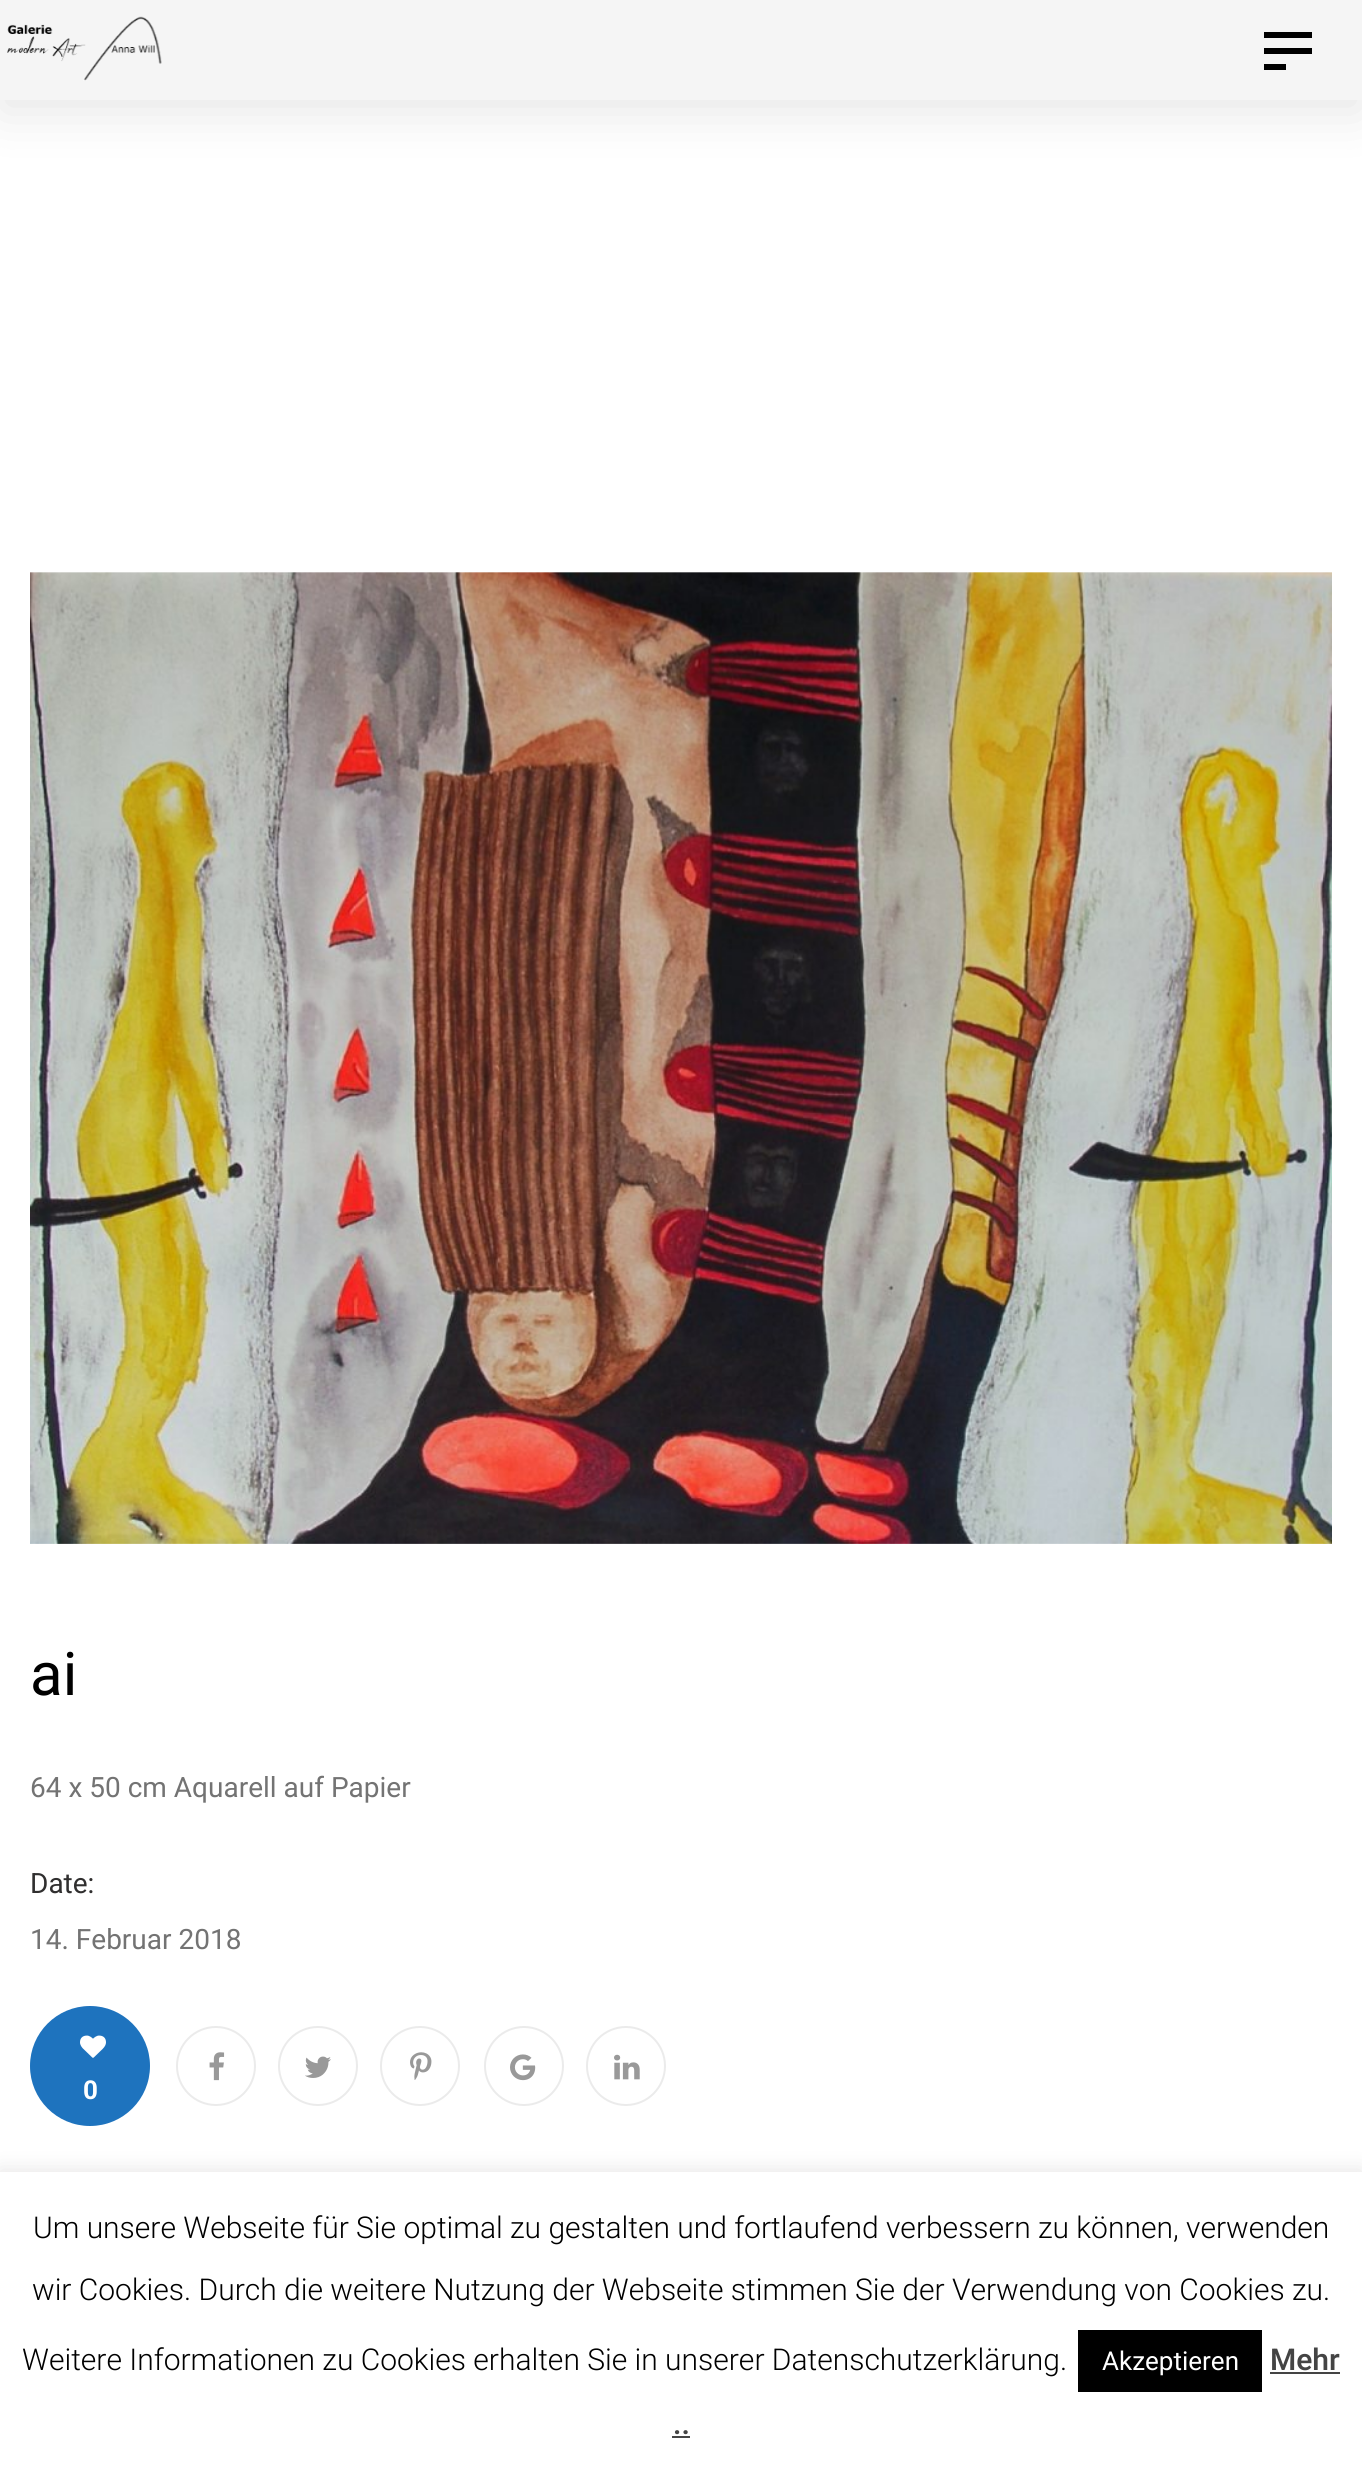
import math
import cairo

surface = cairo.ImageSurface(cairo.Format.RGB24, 1362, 2478)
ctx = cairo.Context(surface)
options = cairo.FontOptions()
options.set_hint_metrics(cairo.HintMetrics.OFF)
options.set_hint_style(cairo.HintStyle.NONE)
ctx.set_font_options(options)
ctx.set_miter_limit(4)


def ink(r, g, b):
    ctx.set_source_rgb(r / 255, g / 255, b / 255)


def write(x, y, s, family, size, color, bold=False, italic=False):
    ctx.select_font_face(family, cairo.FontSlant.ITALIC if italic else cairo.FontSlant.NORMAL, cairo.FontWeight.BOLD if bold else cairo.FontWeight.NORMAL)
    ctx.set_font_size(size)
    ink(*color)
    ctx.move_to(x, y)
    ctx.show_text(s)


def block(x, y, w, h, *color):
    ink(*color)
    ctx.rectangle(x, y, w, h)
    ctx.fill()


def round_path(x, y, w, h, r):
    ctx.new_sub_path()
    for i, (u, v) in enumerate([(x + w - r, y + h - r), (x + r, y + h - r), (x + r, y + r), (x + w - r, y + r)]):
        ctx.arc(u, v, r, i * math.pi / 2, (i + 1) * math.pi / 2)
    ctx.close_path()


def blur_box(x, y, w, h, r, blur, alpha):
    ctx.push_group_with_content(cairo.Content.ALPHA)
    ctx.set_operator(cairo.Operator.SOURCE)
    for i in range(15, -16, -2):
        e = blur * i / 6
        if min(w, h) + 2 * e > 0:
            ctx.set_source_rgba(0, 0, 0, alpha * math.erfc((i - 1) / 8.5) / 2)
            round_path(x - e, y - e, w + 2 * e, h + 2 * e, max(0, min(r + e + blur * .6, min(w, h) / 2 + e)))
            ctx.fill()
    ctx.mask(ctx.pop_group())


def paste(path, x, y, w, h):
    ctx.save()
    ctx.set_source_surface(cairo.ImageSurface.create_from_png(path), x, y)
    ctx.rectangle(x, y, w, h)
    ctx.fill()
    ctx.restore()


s1 = dict(family="Roboto", size=60, color=(0, 0, 0))
s2 = dict(family="Roboto", size=28, color=(115, 115, 115))
s3 = dict(family="Roboto", size=28, color=(48, 47, 47))
s4 = dict(family="Roboto", size=26, color=(255, 255, 255), bold=True)
s5 = dict(family="Roboto Light", size=30, color=(0, 0, 0))
s6 = dict(family="Roboto", size=26, color=(255, 255, 255))
s7 = dict(family="Roboto Medium", size=30, color=(68, 68, 68))

ink(255, 255, 255)
ctx.paint()
ink(0, 0, 0)
blur_box(0, 12, 1362, 100, 0, 25, 0.1)
block(0, 0, 1362, 100, 245, 245, 245)
paste("pic1.png", 7, 16, 155, 65)
block(1264, 32, 48, 6, 0, 0, 0)
block(1264, 48, 48, 6, 0, 0, 0)
block(1264, 64, 22, 6, 0, 0, 0)
paste("pic2.png", 30, 572, 1302, 972)
write(30, 1695, "ai", **s1)
write(30, 1797, "64 x 50 cm Aquarell auf Papier", **s2)
write(30, 1893, "Date:", **s3)
write(30, 1949, "14. Februar 2018", **s2)
ink(30, 115, 190)
ctx.new_path()
ctx.arc(90, 2066, 60, 0, 2 * math.pi)
ctx.fill()
paste("pic3.png", 80, 2035, 26, 23)
write(83, 2099, "0", **s4)
ctx.new_path()
ctx.arc(216, 2066, 39, 0, 2 * math.pi)
ink(235, 235, 235)
ctx.stroke()
paste("pic4.png", 209, 2052, 16, 29)
ctx.arc(318, 2066, 39, 0, 2 * math.pi)
ctx.stroke()
paste("pic5.png", 305, 2056, 26, 22)
ctx.arc(420, 2066, 39, 0, 2 * math.pi)
ctx.stroke()
paste("pic6.png", 410, 2052, 22, 28)
ctx.arc(524, 2066, 39, 0, 2 * math.pi)
ctx.stroke()
paste("pic7.png", 510, 2054, 26, 27)
ctx.arc(626, 2066, 39, 0, 2 * math.pi)
ctx.stroke()
paste("pic8.png", 614, 2054, 26, 26)
ink(172, 171, 171)
blur_box(0, 2170, 1362, 306, 0, 10, 0.3)
block(0, 2172, 1362, 306, 255, 255, 255)
write(33, 2238, "Um unsere Webseite für Sie optimal zu gestalten und fortlaufend verbessern zu können, verwenden", **s5)
write(32, 2300, "wir Cookies. Durch die weitere Nutzung der Webseite stimmen Sie der Verwendung von Cookies zu.", **s5)
write(22, 2370, "Weitere Informationen zu Cookies erhalten Sie in unserer Datenschutzerklärung.", **s5)
block(1078, 2330, 184, 62, 0, 0, 0)
write(1102, 2370, "Akzeptieren", **s6)
write(1270, 2370, "Mehr", **s7)
block(1270, 2372, 70, 2, 68, 68, 68)
write(673, 2434, "..", **s7)
block(672, 2436, 18, 2, 68, 68, 68)
surface.write_to_png("screenshot.png")
